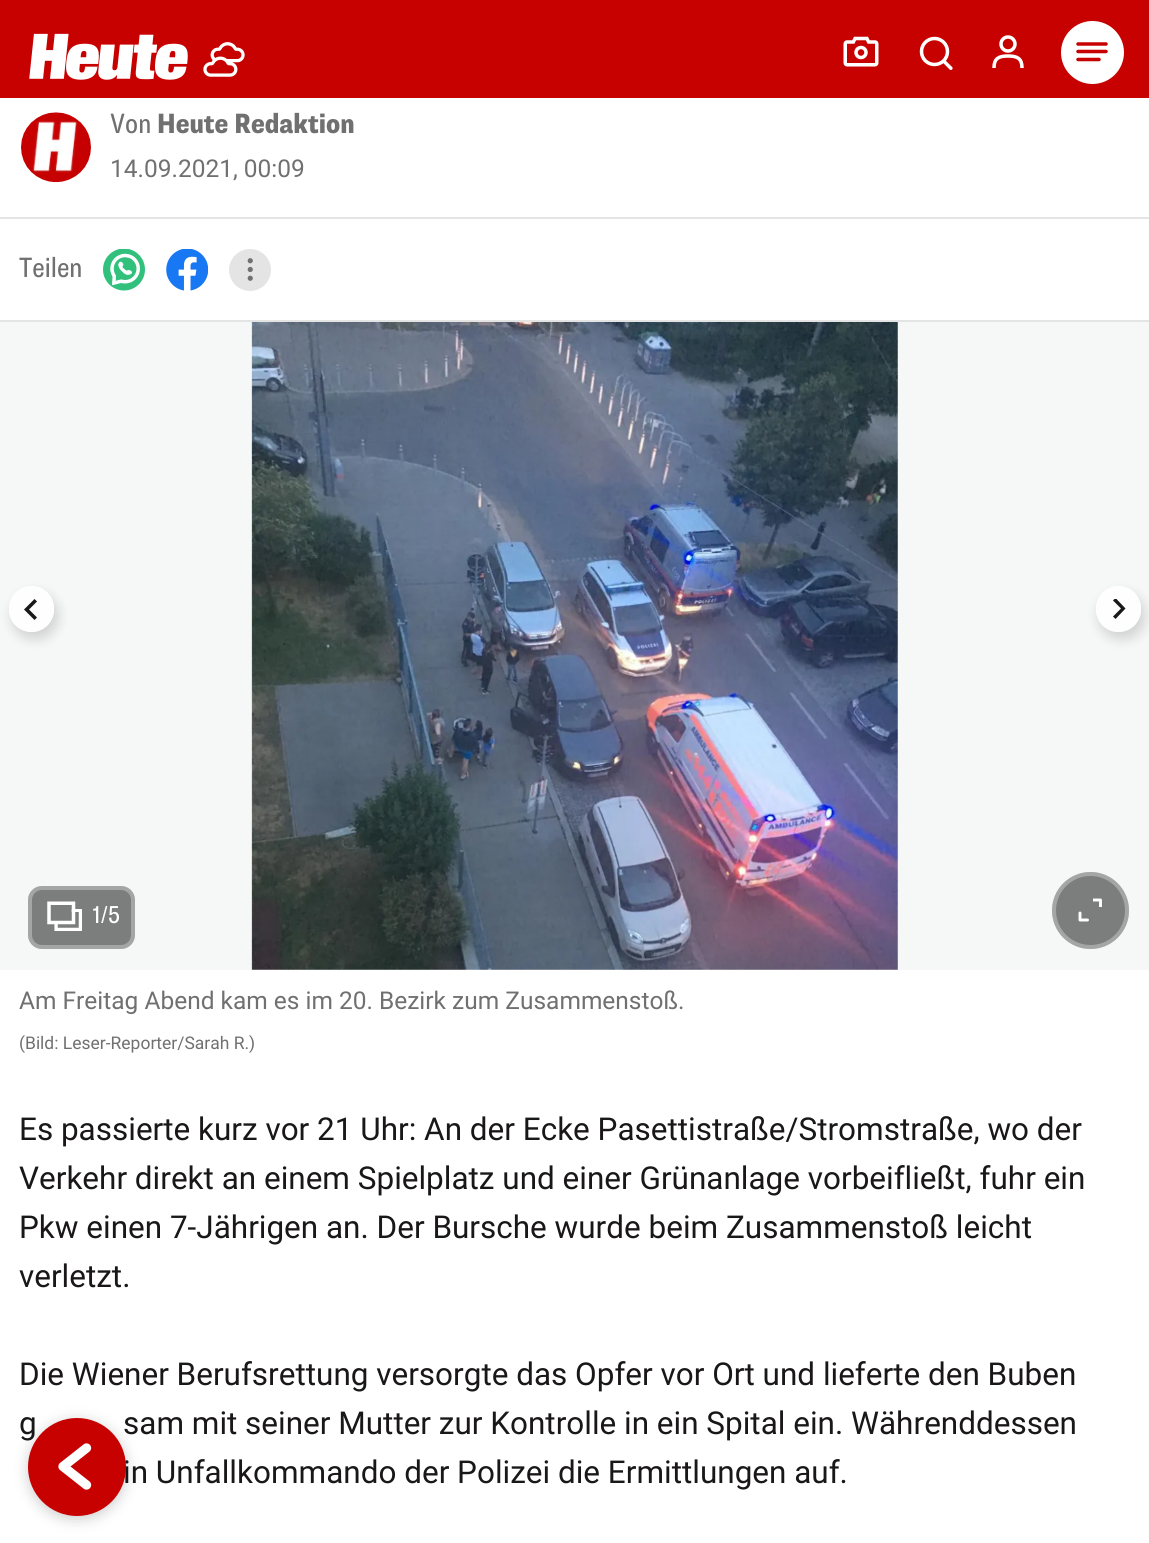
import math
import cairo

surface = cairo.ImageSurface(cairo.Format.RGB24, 1149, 1543)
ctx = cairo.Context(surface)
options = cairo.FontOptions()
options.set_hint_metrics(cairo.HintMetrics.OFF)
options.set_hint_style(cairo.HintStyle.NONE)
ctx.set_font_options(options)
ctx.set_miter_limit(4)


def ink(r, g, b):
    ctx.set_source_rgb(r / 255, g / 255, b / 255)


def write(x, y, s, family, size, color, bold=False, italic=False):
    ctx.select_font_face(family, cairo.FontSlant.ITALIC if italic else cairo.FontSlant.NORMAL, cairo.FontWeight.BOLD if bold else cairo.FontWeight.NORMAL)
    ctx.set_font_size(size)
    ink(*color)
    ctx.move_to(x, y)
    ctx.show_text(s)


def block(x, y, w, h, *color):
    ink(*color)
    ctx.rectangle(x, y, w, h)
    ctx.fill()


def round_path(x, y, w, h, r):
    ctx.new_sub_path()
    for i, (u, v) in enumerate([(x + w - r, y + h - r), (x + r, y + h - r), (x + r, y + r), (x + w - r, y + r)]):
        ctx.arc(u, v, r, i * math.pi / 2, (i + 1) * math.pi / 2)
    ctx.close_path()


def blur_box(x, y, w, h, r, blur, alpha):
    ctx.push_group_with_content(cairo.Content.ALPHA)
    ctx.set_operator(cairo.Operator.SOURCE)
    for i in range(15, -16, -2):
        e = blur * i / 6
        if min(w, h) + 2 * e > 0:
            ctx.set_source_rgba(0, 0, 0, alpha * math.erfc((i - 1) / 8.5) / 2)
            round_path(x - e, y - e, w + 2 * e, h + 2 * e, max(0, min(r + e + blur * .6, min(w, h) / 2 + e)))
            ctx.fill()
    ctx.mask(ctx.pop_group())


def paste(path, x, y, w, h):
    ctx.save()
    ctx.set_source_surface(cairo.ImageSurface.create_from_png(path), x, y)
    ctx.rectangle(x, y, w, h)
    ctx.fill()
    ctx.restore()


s1 = dict(family="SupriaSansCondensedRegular", size=28, color=(112, 112, 112))
s2 = dict(family="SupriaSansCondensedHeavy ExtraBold", size=28, color=(112, 112, 112))
s3 = dict(family="Roboto", size=24.5, color=(112, 112, 112))
s4 = dict(family="SupriaSansCondensedRegular", size=24.5, color=(255, 255, 255))
s5 = dict(family="Roboto", size=17.5, color=(112, 112, 112))
s6 = dict(family="Roboto", size=31.5, color=(25, 23, 23))

ink(255, 255, 255)
ctx.paint()
block(0, 0, 1149, 98, 199, 0, 0)
paste("pic1.png", 29, 33, 159, 47)
paste("pic2.png", 203, 42, 42, 35)
paste("pic3.png", 843, 36, 36, 31)
paste("pic4.png", 919, 36, 34, 34)
ctx.new_path()
ctx.move_to(1022, 68)
ctx.curve_to(1022, 58.5, 1017.5, 56, 1008, 56)
ctx.curve_to(998.5, 56, 994, 58.5, 994, 68)
ink(255, 255, 255)
ctx.set_line_width(3.5)
ctx.stroke()
ctx.arc(1008, 44, 7, 0, 2 * math.pi)
ctx.stroke()
ctx.arc(1092.5, 52.5, 31.5, 0, 2 * math.pi)
ctx.fill()
ctx.new_path()
ctx.move_to(1106, 44)
ctx.line_to(1078, 44)
ctx.move_to(1106, 51.5)
ctx.line_to(1078, 51.5)
ctx.move_to(1099, 59.5)
ctx.line_to(1078, 59.5)
ink(199, 0, 0)
ctx.set_line_cap(cairo.LineCap.ROUND)
ctx.stroke()
paste("pic5.png", 21, 112, 70, 71)
write(110, 133, "Von", **s1)
write(157, 133, "Heute Redaktion", **s2)
write(110, 177, "14.09.2021, 00:09", **s3)
block(0, 217, 1149, 2, 228, 228, 228)
block(0, 320, 1149, 2, 228, 228, 228)
write(19, 277, "Teilen", **s1)
paste("pic6.png", 103, 249, 42, 42)
paste("pic7.png", 166, 249, 42, 42)
ink(228, 228, 228)
ctx.arc(250, 270, 21, 0, 2 * math.pi)
ctx.fill()
paste("pic8.png", 247, 258, 6, 23)
block(0, 322, 1149, 648, 246, 248, 248)
ctx.save()
ctx.set_fill_rule(cairo.FillRule.EVEN_ODD)
ctx.new_path()
ctx.move_to(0, 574)
ctx.line_to(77, 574)
ctx.line_to(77, 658)
ctx.line_to(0, 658)
ctx.close_path()
ctx.move_to(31.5, 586)
ctx.curve_to(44, 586, 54, 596, 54, 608.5)
ctx.line_to(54, 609.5)
ctx.curve_to(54, 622, 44, 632, 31.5, 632)
ctx.curve_to(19, 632, 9, 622, 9, 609.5)
ctx.line_to(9, 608.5)
ctx.curve_to(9, 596, 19, 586, 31.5, 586)
ctx.close_path()
ctx.clip()
ink(0, 0, 0)
blur_box(12, 593, 46, 46, 23, 6, 0.15)
ctx.restore()
ctx.set_source_rgba(1, 1, 1, 0.9)
round_path(9, 586, 45, 46, 22.5)
ctx.fill()
ink(25, 23, 23)
ctx.new_path()
ctx.move_to(34.5, 620)
ctx.line_to(37, 617.5)
ctx.line_to(29, 609.5)
ctx.line_to(37, 601.5)
ctx.line_to(34.5, 599)
ctx.line_to(24, 609.5)
ctx.close_path()
ctx.fill()
ctx.save()
ctx.set_fill_rule(cairo.FillRule.EVEN_ODD)
ctx.new_path()
ctx.move_to(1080, 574)
ctx.line_to(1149, 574)
ctx.line_to(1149, 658)
ctx.line_to(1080, 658)
ctx.close_path()
ctx.move_to(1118.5, 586)
ctx.curve_to(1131, 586, 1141, 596, 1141, 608.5)
ctx.line_to(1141, 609.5)
ctx.curve_to(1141, 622, 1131, 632, 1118.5, 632)
ctx.curve_to(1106, 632, 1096, 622, 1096, 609.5)
ctx.line_to(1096, 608.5)
ctx.curve_to(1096, 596, 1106, 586, 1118.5, 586)
ctx.close_path()
ctx.clip()
ink(0, 0, 0)
blur_box(1099, 593, 46, 46, 23, 6, 0.15)
ctx.restore()
ctx.set_source_rgba(1, 1, 1, 0.9)
round_path(1096, 586, 45, 46, 22.5)
ctx.fill()
ctx.save()
ctx.rectangle(1108, 599, 21, 21)
ctx.clip()
ink(25, 23, 23)
ctx.new_path()
ctx.move_to(1115.5, 598)
ctx.line_to(1113, 600.5)
ctx.line_to(1121, 608.5)
ctx.line_to(1113, 616.5)
ctx.line_to(1115.5, 619)
ctx.line_to(1125.5, 608.5)
ctx.close_path()
ctx.fill()
ctx.restore()
ink(124, 125, 125)
round_path(28, 886, 107, 63, 14)
ctx.fill()
round_path(30, 888, 103, 59, 12)
ctx.set_source_rgba(1, 1, 1, 0.31)
ctx.set_line_width(4)
ctx.set_line_cap(cairo.LineCap.BUTT)
ctx.stroke()
paste("pic9.png", 47, 901, 35, 30)
write(93, 923, "1/5", **s4)
ink(124, 125, 125)
ctx.new_path()
ctx.arc(1090.5, 910.5, 38.5, 0, 2 * math.pi)
ctx.fill()
ctx.arc(1090.5, 910.5, 36.5, 0, 2 * math.pi)
ctx.set_source_rgba(1, 1, 1, 0.31)
ctx.stroke()
ctx.new_path()
ctx.move_to(1087.5, 920)
ctx.line_to(1080, 920)
ctx.line_to(1080, 913)
ink(255, 255, 255)
ctx.set_line_width(2.9)
ctx.set_line_cap(cairo.LineCap.ROUND)
ctx.set_line_join(cairo.LineJoin.ROUND)
ctx.stroke()
ctx.new_path()
ctx.move_to(1093, 900)
ctx.line_to(1100.5, 900)
ctx.line_to(1100.5, 907)
ctx.set_line_cap(cairo.LineCap.BUTT)
ctx.stroke()
paste("pic10.png", 251, 322, 647, 648)
write(19, 1009, "Am Freitag Abend kam es im 20. Bezirk zum Zusammenstoß.", **s3)
write(19, 1049, "(Bild: Leser-Reporter/Sarah R.)", **s5)
write(19, 1140, "Es passierte kurz vor 21 Uhr: An der Ecke Pasettistraße/Stromstraße, wo der", **s6)
write(19, 1189, "Verkehr direkt an einem Spielplatz und einer Grünanlage vorbeifließt, fuhr ein", **s6)
write(19, 1238, "Pkw einen 7-Jährigen an. Der Bursche wurde beim Zusammenstoß leicht", **s6)
write(19, 1287, "verletzt.", **s6)
write(19, 1385, "Die Wiener Berufsrettung versorgte das Opfer vor Ort und lieferte den Buben", **s6)
write(19, 1434, "g", **s6)
write(123, 1434, "sam mit seiner Mutter zur Kontrolle in ein Spital ein. Währenddessen", **s6)
write(123, 1483, "in Unfallkommando der Polizei die Ermittlungen auf.", **s6)
ink(0, 0, 0)
blur_box(28, 1421, 98, 98, 49, 7, 0.2)
ink(199, 0, 0)
ctx.arc(77, 1467, 49, 0, 2 * math.pi)
ctx.fill()
ctx.new_path()
ctx.move_to(86.5, 1448)
ctx.line_to(63, 1466.5)
ctx.line_to(86.5, 1485)
ink(255, 255, 255)
ctx.set_line_width(9.3)
ctx.set_line_cap(cairo.LineCap.ROUND)
ctx.stroke()
surface.write_to_png("screenshot.png")
